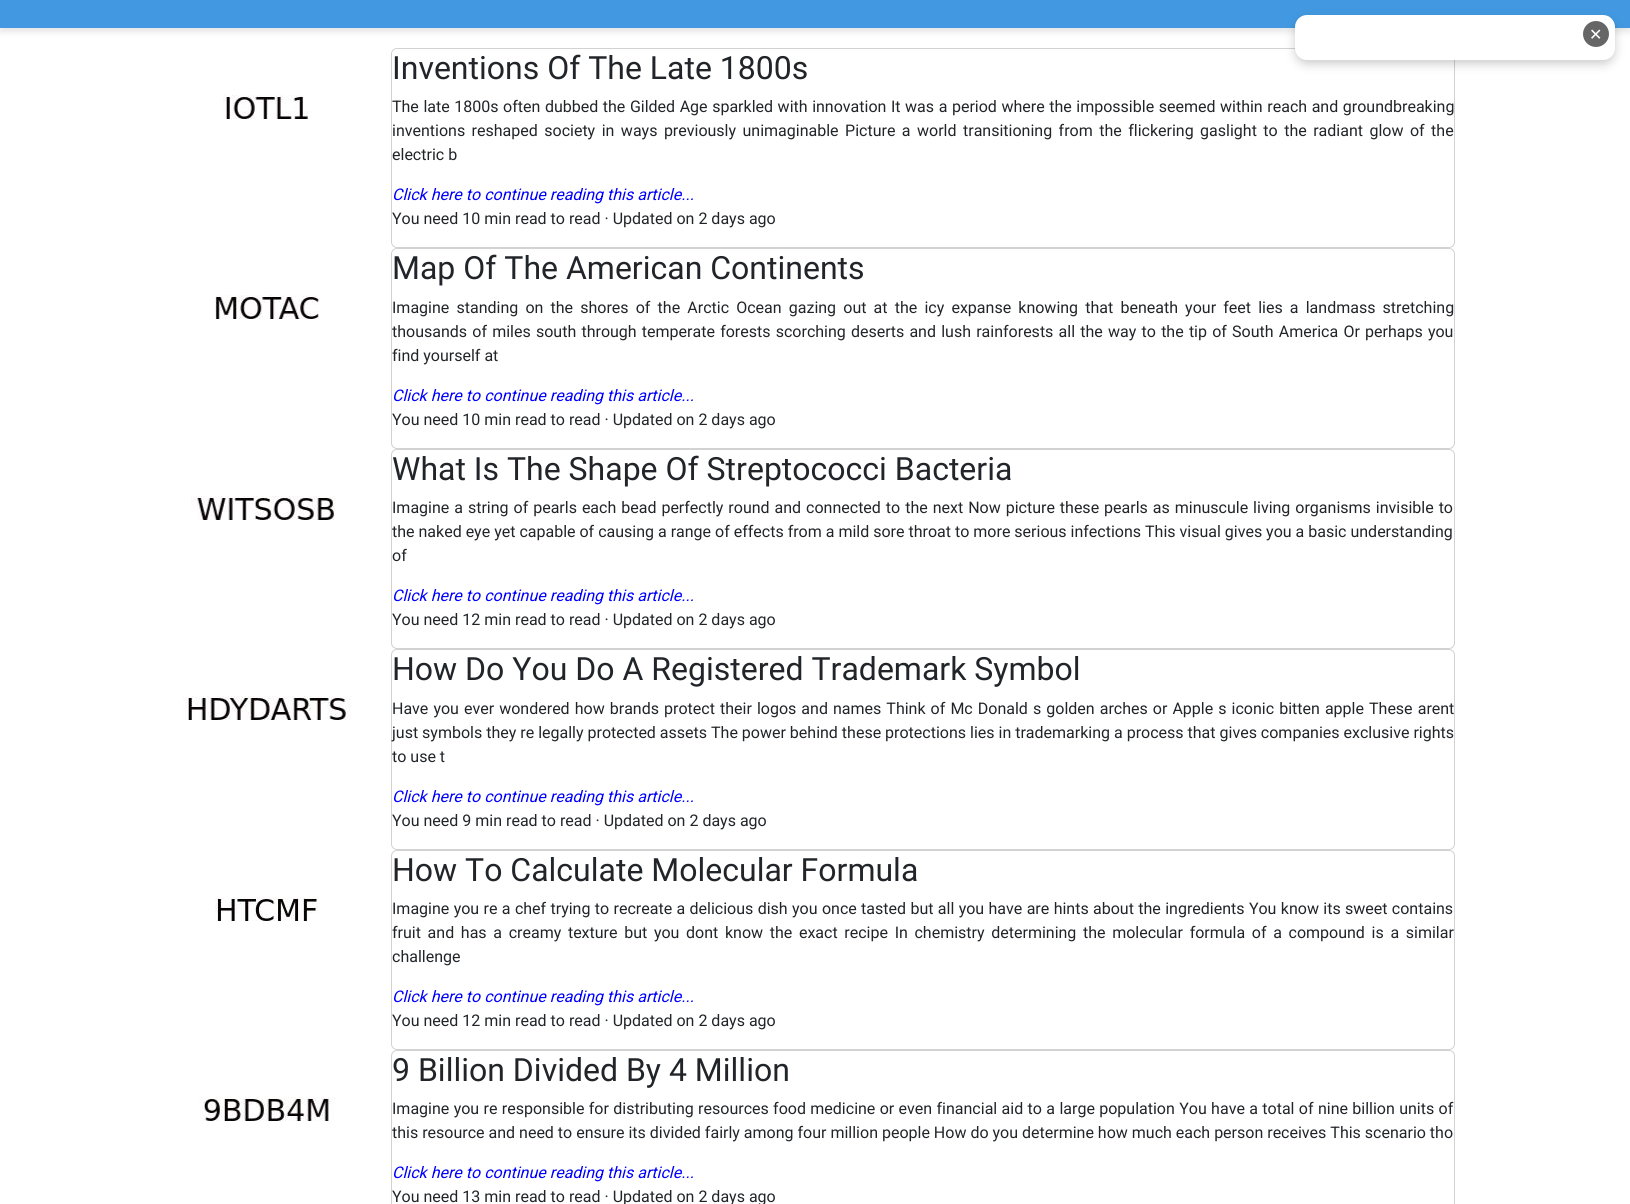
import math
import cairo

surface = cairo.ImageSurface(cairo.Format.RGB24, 1630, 1204)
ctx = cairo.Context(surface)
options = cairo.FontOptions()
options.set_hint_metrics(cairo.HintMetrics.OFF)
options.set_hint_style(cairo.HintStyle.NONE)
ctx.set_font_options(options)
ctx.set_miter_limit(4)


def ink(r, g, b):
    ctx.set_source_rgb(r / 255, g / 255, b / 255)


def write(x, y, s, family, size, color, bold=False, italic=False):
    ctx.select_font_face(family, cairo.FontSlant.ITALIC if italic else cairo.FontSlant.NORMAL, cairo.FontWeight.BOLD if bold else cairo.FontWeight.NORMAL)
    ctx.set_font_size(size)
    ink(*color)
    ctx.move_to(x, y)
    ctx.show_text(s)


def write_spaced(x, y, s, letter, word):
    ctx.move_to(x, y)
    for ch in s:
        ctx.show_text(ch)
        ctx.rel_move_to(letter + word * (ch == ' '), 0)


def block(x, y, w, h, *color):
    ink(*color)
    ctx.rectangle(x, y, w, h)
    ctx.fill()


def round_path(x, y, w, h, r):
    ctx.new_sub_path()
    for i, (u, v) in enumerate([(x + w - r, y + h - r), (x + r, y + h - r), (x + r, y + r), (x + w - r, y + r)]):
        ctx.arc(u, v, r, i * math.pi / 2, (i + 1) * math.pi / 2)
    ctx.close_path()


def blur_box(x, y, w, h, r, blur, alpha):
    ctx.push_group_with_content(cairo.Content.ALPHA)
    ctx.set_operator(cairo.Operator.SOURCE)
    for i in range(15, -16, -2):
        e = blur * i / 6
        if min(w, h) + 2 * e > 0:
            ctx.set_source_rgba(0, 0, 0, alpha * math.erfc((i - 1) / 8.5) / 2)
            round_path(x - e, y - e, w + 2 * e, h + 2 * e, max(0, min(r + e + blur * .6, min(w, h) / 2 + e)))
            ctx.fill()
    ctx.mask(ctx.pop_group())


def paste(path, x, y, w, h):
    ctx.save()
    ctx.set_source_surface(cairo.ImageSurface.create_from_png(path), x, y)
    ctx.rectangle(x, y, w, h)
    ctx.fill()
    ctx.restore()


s1 = dict(family="DejaVu Sans", size=16, color=(255, 255, 255))
s2 = dict(family="Roboto", size=32, color=(33, 37, 41))
s3 = dict(family="Roboto", size=16, color=(33, 37, 41))
s4 = dict(family="Roboto", size=16, color=(0, 0, 255), italic=True)

ink(255, 255, 255)
ctx.paint()
ink(0, 0, 0)
blur_box(0, -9, 1630, 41, 0, 3, 0.1)
block(0, 0, 1630, 28, 66, 153, 225)
round_path(391.5, 48.5, 1063, 199, 5.5)
ink(210, 210, 210)
ctx.set_line_width(1)
ctx.stroke()
ink(0, 0, 0)
blur_box(1295, 19, 320, 45, 12, 5, 0.2)
ink(255, 255, 255)
round_path(1295, 15, 320, 45, 12)
ctx.fill()
ink(102, 102, 102)
ctx.arc(1596, 34, 13, 0, 2 * math.pi)
ctx.fill()
write(1589, 40, "✕", **s1)
paste("pic1.png", 223, 95, 88, 24)
write(392, 79, "Inventions Of The Late 1800s", **s2)
ctx.set_font_size(16)
write_spaced(392, 112, "The late 1800s often dubbed the Gilded Age sparkled with innovation It was a period where the impossible seemed within reach and groundbreaking", 0, 0.6)
write_spaced(392, 136, "inventions reshaped society in ways previously unimaginable Picture a world transitioning from the flickering gaslight to the radiant glow of the", 0, 2.5)
write(392, 160, "electric b", **s3)
write(392, 200, "Click here to continue reading this article...", **s4)
write(392, 224, "You need 10 min read to read · Updated on 2 days ago", **s3)
paste("pic2.png", 215, 295, 104, 24)
round_path(391.5, 248.5, 1063, 200, 5.5)
ink(210, 210, 210)
ctx.stroke()
write(392, 279, "Map Of The American Continents", **s2)
ctx.set_font_size(16)
write_spaced(392, 313, "Imagine standing on the shores of the Arctic Ocean gazing out at the icy expanse knowing that beneath your feet lies a landmass stretching", 0, 3.2)
write_spaced(392, 337, "thousands of miles south through temperate forests scorching deserts and lush rainforests all the way to the tip of South America Or perhaps you", 0, 1.25)
write(392, 361, "find yourself at", **s3)
write(392, 401, "Click here to continue reading this article...", **s4)
write(392, 425, "You need 10 min read to read · Updated on 2 days ago", **s3)
paste("pic3.png", 191, 496, 144, 24)
round_path(391.5, 449.5, 1063, 199, 5.5)
ink(210, 210, 210)
ctx.stroke()
write(392, 480, "What Is The Shape Of Streptococci Bacteria", **s2)
ctx.set_font_size(16)
write_spaced(392, 513, "Imagine a string of pearls each bead perfectly round and connected to the next Now picture these pearls as minuscule living organisms invisible to", 0, 1)
write(392, 537, "the naked eye yet capable of causing a range of effects from a mild sore throat to more serious infections This visual gives you a basic understanding", **s3)
write(392, 561, "of", **s3)
write(392, 601, "Click here to continue reading this article...", **s4)
write(392, 625, "You need 12 min read to read · Updated on 2 days ago", **s3)
paste("pic4.png", 183, 696, 168, 24)
round_path(391.5, 649.5, 1063, 200, 5.5)
ink(210, 210, 210)
ctx.stroke()
write(392, 680, "How Do You Do A Registered Trademark Symbol", **s2)
ctx.set_font_size(16)
write_spaced(392, 714, "Have you ever wondered how brands protect their logos and names Think of Mc Donald s golden arches or Apple s iconic bitten apple These arent", 0, 1.1)
write(392, 738, "just symbols they re legally protected assets The power behind these protections lies in trademarking a process that gives companies exclusive rights", **s3)
write(392, 762, "to use t", **s3)
write(392, 802, "Click here to continue reading this article...", **s4)
write(392, 826, "You need 9 min read to read · Updated on 2 days ago", **s3)
paste("pic5.png", 215, 897, 104, 24)
round_path(391.5, 850.5, 1063, 199, 5.5)
ink(210, 210, 210)
ctx.stroke()
write(392, 881, "How To Calculate Molecular Formula", **s2)
ctx.set_font_size(16)
write_spaced(392, 914, "Imagine you re a chef trying to recreate a delicious dish you once tasted but all you have are hints about the ingredients You know its sweet contains", 0, 0.4)
write_spaced(392, 938, "fruit and has a creamy texture but you dont know the exact recipe In chemistry determining the molecular formula of a compound is a similar", 0, 2.7)
write(392, 962, "challenge", **s3)
write(392, 1002, "Click here to continue reading this article...", **s4)
write(392, 1026, "You need 12 min read to read · Updated on 2 days ago", **s3)
paste("pic6.png", 199, 1097, 136, 24)
round_path(391.5, 1050.5, 1063, 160, 5.5)
ink(210, 210, 210)
ctx.stroke()
write(392, 1081, "9 Billion Divided By 4 Million", **s2)
ctx.set_font_size(16)
write_spaced(392, 1114, "Imagine you re responsible for distributing resources food medicine or even financial aid to a large population You have a total of nine billion units of", 0, 0.4)
write(392, 1138, "this resource and need to ensure its divided fairly among four million people How do you determine how much each person receives This scenario tho", **s3)
write(392, 1178, "Click here to continue reading this article...", **s4)
write(392, 1202, "You need 13 min read to read · Updated on 2 days ago", **s3)
surface.write_to_png("screenshot.png")
